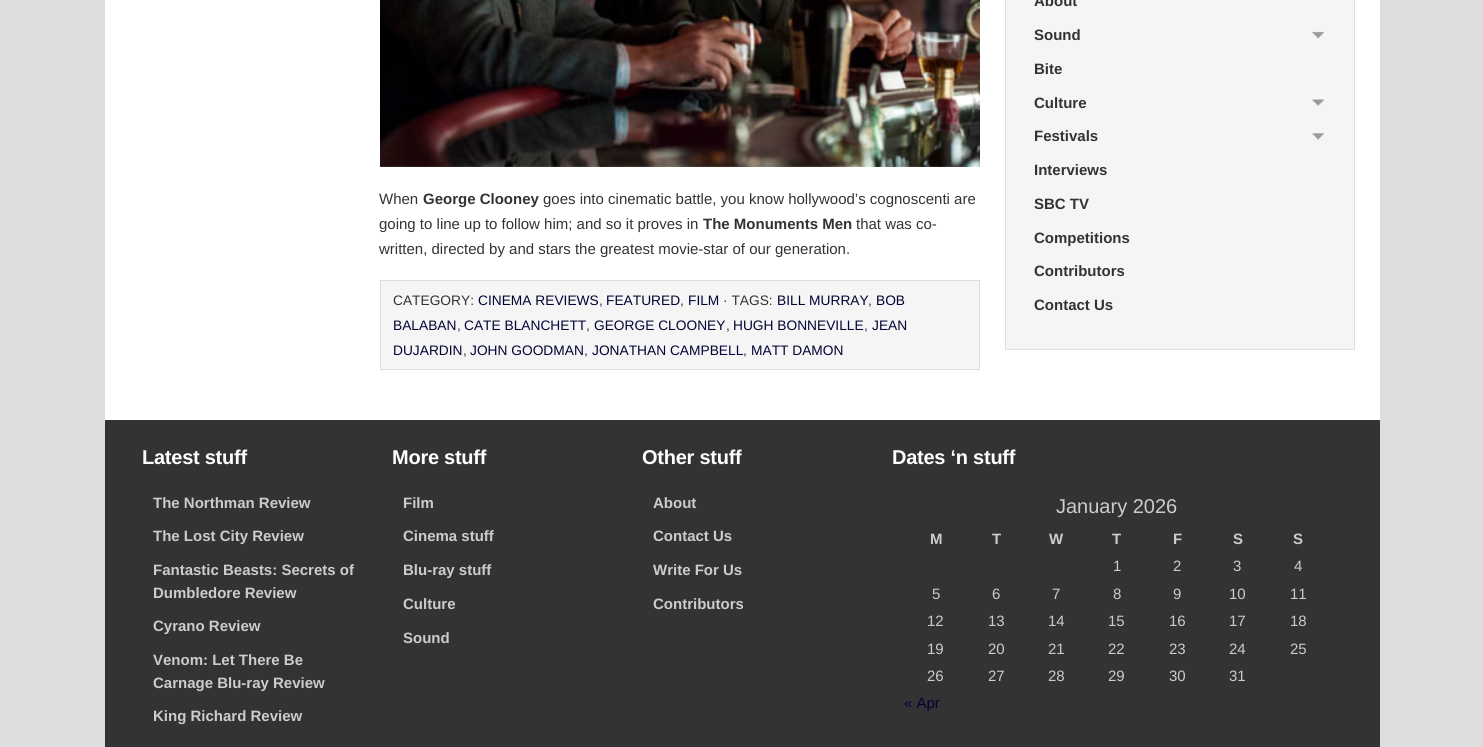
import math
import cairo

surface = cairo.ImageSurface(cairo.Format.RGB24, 1483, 747)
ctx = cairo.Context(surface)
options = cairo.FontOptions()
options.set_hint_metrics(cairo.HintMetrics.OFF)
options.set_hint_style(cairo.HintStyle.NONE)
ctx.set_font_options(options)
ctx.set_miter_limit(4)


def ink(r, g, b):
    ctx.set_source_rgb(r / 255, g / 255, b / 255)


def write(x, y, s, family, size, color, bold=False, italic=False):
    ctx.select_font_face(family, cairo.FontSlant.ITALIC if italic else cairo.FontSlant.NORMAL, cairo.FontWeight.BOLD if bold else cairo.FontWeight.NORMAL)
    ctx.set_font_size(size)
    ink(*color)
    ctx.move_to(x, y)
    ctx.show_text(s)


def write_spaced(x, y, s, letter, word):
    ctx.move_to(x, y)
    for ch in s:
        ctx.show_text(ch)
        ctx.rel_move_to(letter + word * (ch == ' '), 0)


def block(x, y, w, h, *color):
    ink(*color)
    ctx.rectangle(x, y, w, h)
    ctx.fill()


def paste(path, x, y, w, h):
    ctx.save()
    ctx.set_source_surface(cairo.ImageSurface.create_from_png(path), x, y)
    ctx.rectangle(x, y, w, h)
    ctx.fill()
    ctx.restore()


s1 = dict(family="Liberation Sans", size=15, color=(51, 51, 51))
s2 = dict(family="Liberation Sans", size=15, color=(51, 51, 51), bold=True)
s3 = dict(family="Liberation Sans", size=13.75, color=(51, 51, 51))
s4 = dict(family="Liberation Sans", size=13.75, color=(3, 3, 53))
s5 = dict(family="Liberation Sans", size=15, color=(204, 204, 204), bold=True)
s6 = dict(family="Liberation Sans", size=20, color=(204, 204, 204))
s7 = dict(family="Liberation Sans", size=15, color=(204, 204, 204))
s8 = dict(family="Liberation Sans", size=15, color=(3, 3, 53))

ink(221, 221, 221)
ctx.paint()
block(105, 0, 1275, 420, 255, 255, 255)
paste("pic1.png", 380, 0, 600, 167)
write(379, 204, "When", **s1)
write(423, 204, "George Clooney", **s2)
write(543, 204, "goes into cinematic battle, you know hollywood’s cognoscenti are", **s1)
write(379, 229, "going to line up to follow him; and so it proves in", **s1)
write(703, 229, "The Monuments Men", **s2)
write(856, 229, "that was co-", **s1)
write(379, 254, "written, directed by and stars the greatest movie-star of our generation.", **s1)
ink(245, 245, 245)
ctx.rectangle(380.5, 280.5, 599, 89)
ctx.fill_preserve()
ink(221, 221, 221)
ctx.set_line_width(1)
ctx.stroke()
write(393, 305, "CATEGORY:", **s3)
write(478, 305, "CINEMA REVIEWS", **s4)
write(599, 305, ",", **s3)
write(606, 305, "FEATURED", **s4)
write(680, 305, ",", **s3)
write(688, 305, "FILM", **s4)
write(723, 305, "· TAGS:", **s3)
write(777, 305, "BILL MURRAY", **s4)
write(868, 305, ",", **s3)
write(876, 305, "BOB", **s4)
write(393, 330, "BALABAN", **s4)
write(457, 330, ",", **s3)
write(464, 330, "CATE BLANCHETT", **s4)
write(586, 330, ",", **s3)
write(594, 330, "GEORGE CLOONEY", **s4)
write(726, 330, ",", **s3)
write(733, 330, "HUGH BONNEVILLE", **s4)
write(864, 330, ",", **s3)
write(872, 330, "JEAN", **s4)
write(393, 355, "DUJARDIN", **s4)
write(463, 355, ",", **s3)
write(470, 355, "JOHN GOODMAN", **s4)
write(584, 355, ",", **s3)
write(592, 355, "JONATHAN CAMPBELL", **s4)
write(743, 355, ",", **s3)
write(751, 355, "MATT DAMON", **s4)
ink(245, 245, 245)
ctx.rectangle(1005.5, -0.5, 349, 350)
ctx.fill_preserve()
ink(221, 221, 221)
ctx.stroke()
write(1034, 6, "About", **s2)
write(1034, 40, "Sound", **s2)
paste("pic2.png", 1312, 31, 12, 8)
write(1034, 74, "Bite", **s2)
write(1034, 108, "Culture", **s2)
paste("pic3.png", 1312, 99, 12, 7)
write(1034, 141, "Festivals", **s2)
paste("pic4.png", 1312, 133, 12, 7)
write(1034, 175, "Interviews", **s2)
write(1034, 209, "SBC TV", **s2)
write(1034, 243, "Competitions", **s2)
write(1034, 276, "Contributors", **s2)
write(1034, 310, "Contact Us", **s2)
block(105, 420, 1275, 327, 51, 51, 51)
ctx.set_font_size(20)
ink(255, 255, 255)
write_spaced(142, 464, "Latest stuff", -0.25, 0)
write(153, 508, "The Northman Review", **s5)
write(153, 541, "The Lost City Review", **s5)
write(153, 575, "Fantastic Beasts: Secrets of", **s5)
write(153, 598, "Dumbledore Review", **s5)
write(153, 631, "Cyrano Review", **s5)
write(153, 665, "Venom: Let There Be", **s5)
write(153, 688, "Carnage Blu-ray Review", **s5)
write(153, 721, "King Richard Review", **s5)
ctx.set_font_size(20)
ink(255, 255, 255)
write_spaced(392, 464, "More stuff", -0.25, 0)
write(403, 508, "Film", **s5)
write(403, 541, "Cinema stuff", **s5)
write(403, 575, "Blu-ray stuff", **s5)
write(403, 609, "Culture", **s5)
write(403, 643, "Sound", **s5)
ctx.set_font_size(20)
ink(255, 255, 255)
write_spaced(642, 464, "Other stuff", -0.25, 0)
write(653, 508, "About", **s5)
write(653, 541, "Contact Us", **s5)
write(653, 575, "Write For Us", **s5)
write(653, 609, "Contributors", **s5)
ctx.set_font_size(20)
ink(255, 255, 255)
write_spaced(892, 464, "Dates ‘n stuff", -0.25, 0)
write(1056, 513, "January 2026", **s6)
write(930, 544, "M", **s5)
write(992, 544, "T", **s5)
write(1049, 544, "W", **s5)
write(1112, 544, "T", **s5)
write(1173, 544, "F", **s5)
write(1233, 544, "S", **s5)
write(1293, 544, "S", **s5)
write(1113, 571, "1", **s7)
write(1173, 571, "2", **s7)
write(1233, 571, "3", **s7)
write(1294, 571, "4", **s7)
write(932, 599, "5", **s7)
write(992, 599, "6", **s7)
write(1052, 599, "7", **s7)
write(1113, 599, "8", **s7)
write(1173, 599, "9", **s7)
write(1229, 599, "10", **s7)
write(1290, 599, "11", **s7)
write(927, 626, "12", **s7)
write(988, 626, "13", **s7)
write(1048, 626, "14", **s7)
write(1108, 626, "15", **s7)
write(1169, 626, "16", **s7)
write(1229, 626, "17", **s7)
write(1290, 626, "18", **s7)
write(927, 654, "19", **s7)
write(988, 654, "20", **s7)
write(1048, 654, "21", **s7)
write(1108, 654, "22", **s7)
write(1169, 654, "23", **s7)
write(1229, 654, "24", **s7)
write(1290, 654, "25", **s7)
write(927, 681, "26", **s7)
write(988, 681, "27", **s7)
write(1048, 681, "28", **s7)
write(1108, 681, "29", **s7)
write(1169, 681, "30", **s7)
write(1229, 681, "31", **s7)
write(904, 708, "« Apr", **s8)
surface.write_to_png("screenshot.png")
